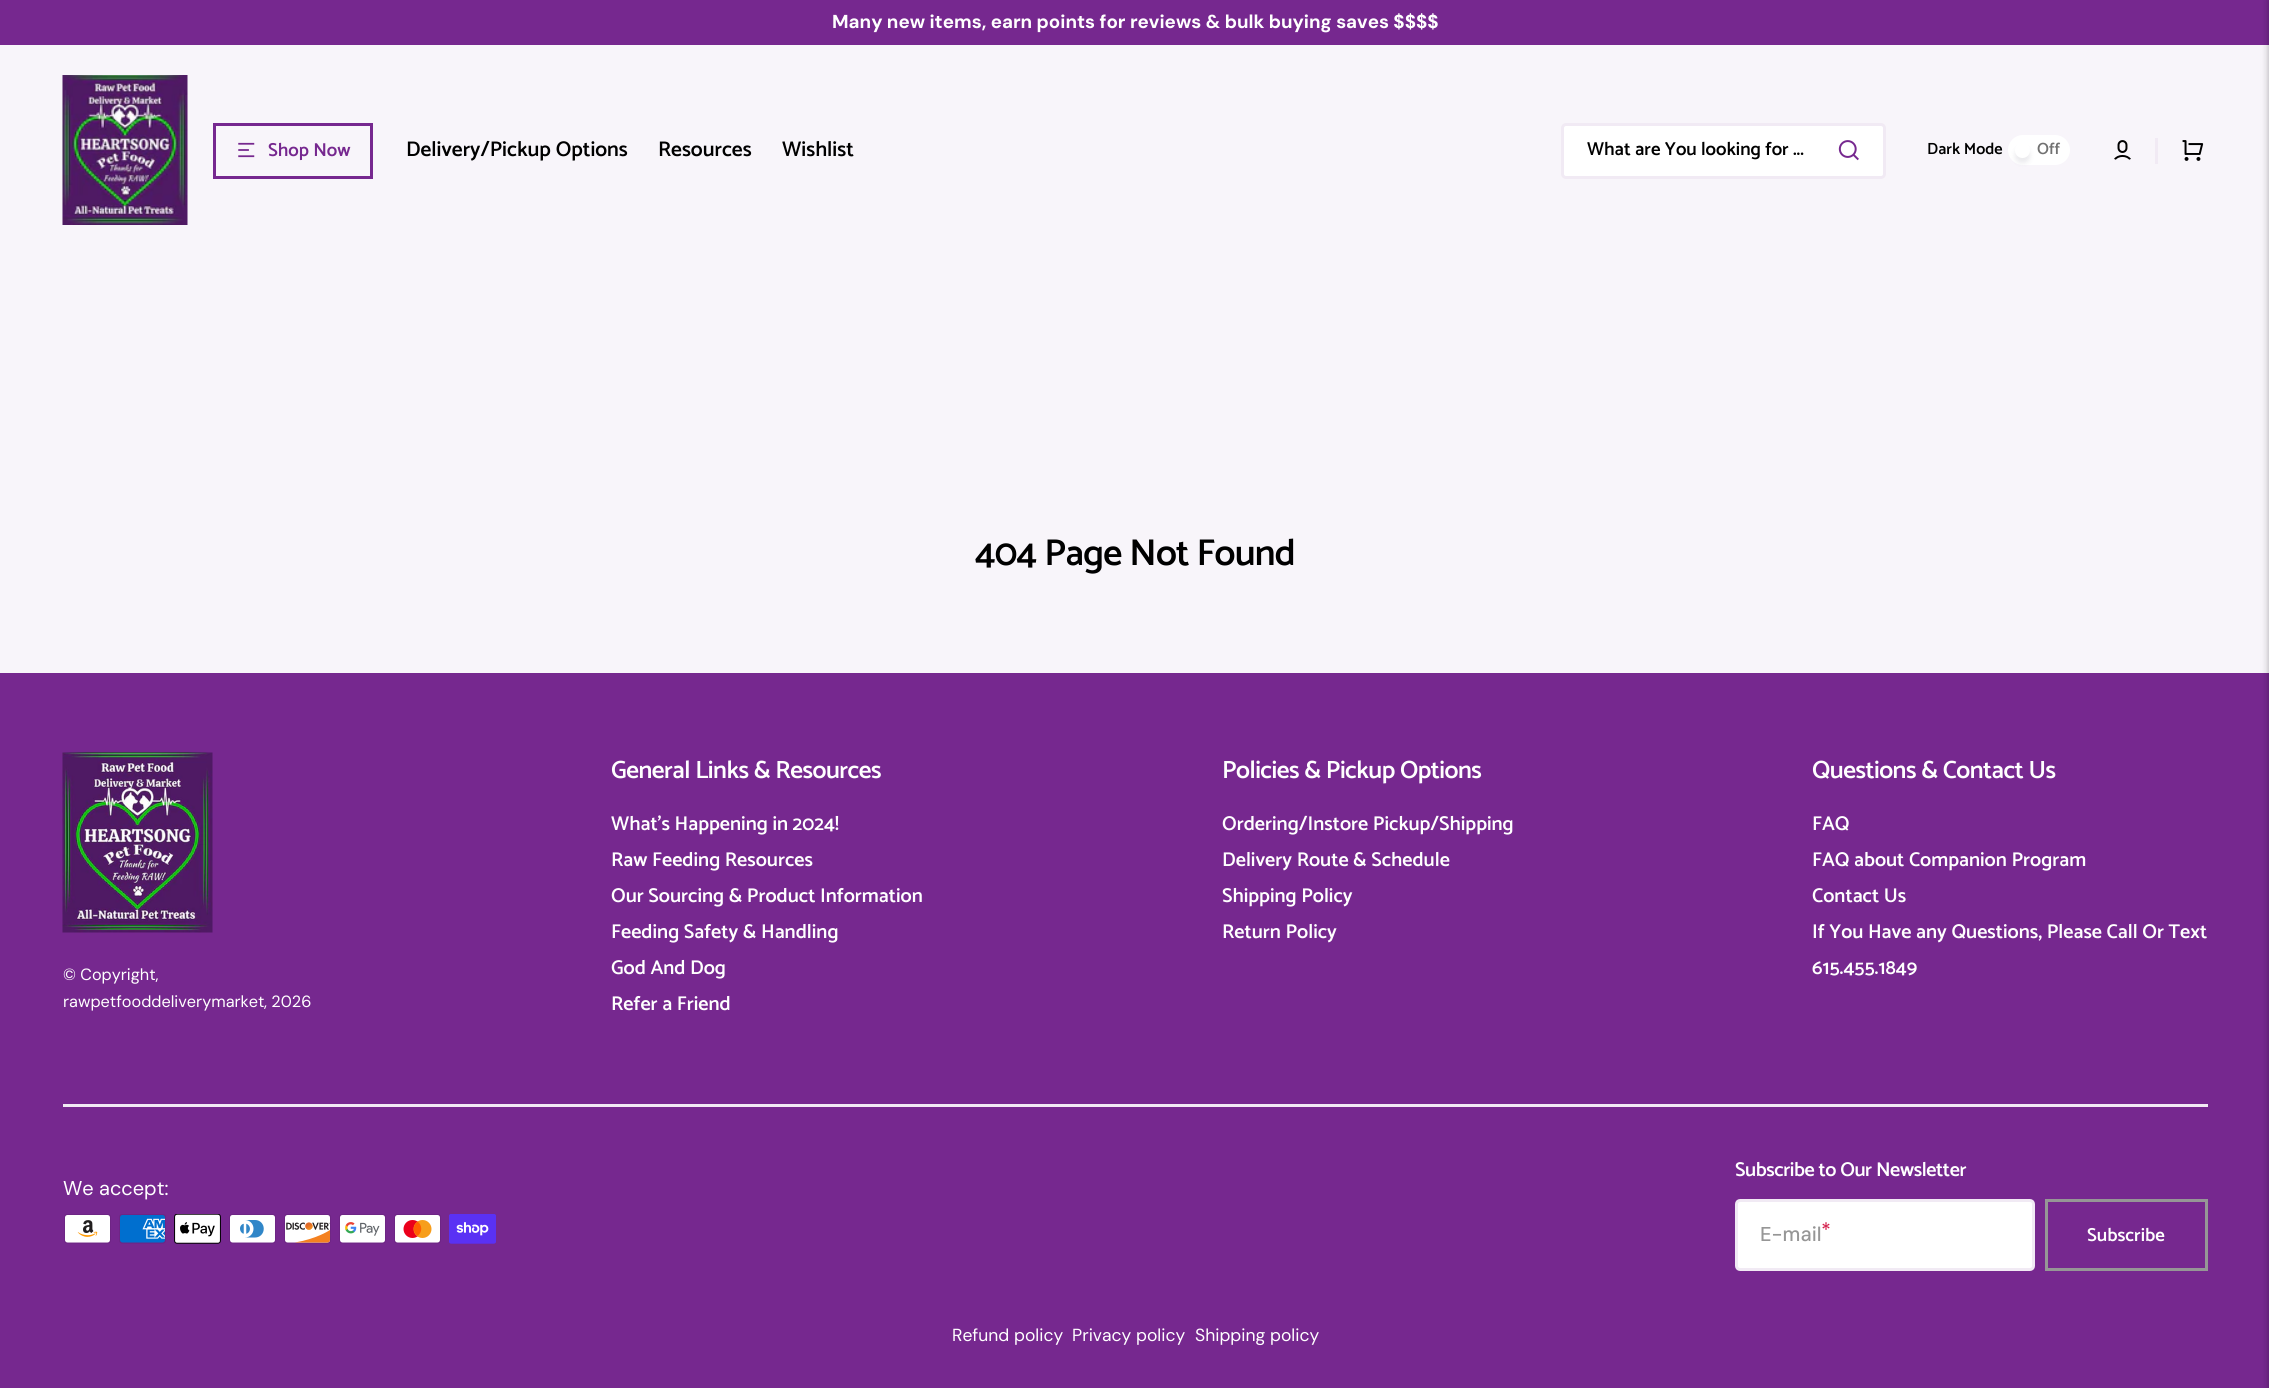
import math
import cairo

surface = cairo.ImageSurface(cairo.Format.RGB24, 2269, 1388)
ctx = cairo.Context(surface)
options = cairo.FontOptions()
options.set_hint_metrics(cairo.HintMetrics.OFF)
options.set_hint_style(cairo.HintStyle.NONE)
ctx.set_font_options(options)
ctx.set_miter_limit(4)


def ink(r, g, b):
    ctx.set_source_rgb(r / 255, g / 255, b / 255)


def write(x, y, s, family, size, color, bold=False, italic=False):
    ctx.select_font_face(family, cairo.FontSlant.ITALIC if italic else cairo.FontSlant.NORMAL, cairo.FontWeight.BOLD if bold else cairo.FontWeight.NORMAL)
    ctx.set_font_size(size)
    ink(*color)
    ctx.move_to(x, y)
    ctx.show_text(s)


def write_spaced(x, y, s, letter, word):
    ctx.move_to(x, y)
    for ch in s:
        ctx.show_text(ch)
        ctx.rel_move_to(letter + word * (ch == ' '), 0)


def block(x, y, w, h, *color):
    ink(*color)
    ctx.rectangle(x, y, w, h)
    ctx.fill()


def round_path(x, y, w, h, r):
    ctx.new_sub_path()
    for i, (u, v) in enumerate([(x + w - r, y + h - r), (x + r, y + h - r), (x + r, y + r), (x + w - r, y + r)]):
        ctx.arc(u, v, r, i * math.pi / 2, (i + 1) * math.pi / 2)
    ctx.close_path()


def blur_box(x, y, w, h, r, blur, alpha):
    ctx.push_group_with_content(cairo.Content.ALPHA)
    ctx.set_operator(cairo.Operator.SOURCE)
    for i in range(15, -16, -2):
        e = blur * i / 6
        if min(w, h) + 2 * e > 0:
            ctx.set_source_rgba(0, 0, 0, alpha * math.erfc((i - 1) / 8.5) / 2)
            round_path(x - e, y - e, w + 2 * e, h + 2 * e, max(0, min(r + e + blur * .6, min(w, h) / 2 + e)))
            ctx.fill()
    ctx.mask(ctx.pop_group())


def paste(path, x, y, w, h):
    ctx.save()
    ctx.set_source_surface(cairo.ImageSurface.create_from_png(path), x, y)
    ctx.rectangle(x, y, w, h)
    ctx.fill()
    ctx.restore()


s1 = dict(family="DM Sans", size=18.75, color=(255, 255, 255), bold=True)
s2 = dict(family="Catamaran SemiBold", size=18.75, color=(118, 40, 143))
s3 = dict(family="Catamaran SemiBold", size=21.25, color=(0, 0, 0))
s4 = dict(family="Catamaran SemiBold", size=18.75, color=(0, 0, 0))
s5 = dict(family="Catamaran SemiBold", size=16.25, color=(0, 0, 0))
s6 = dict(family="Catamaran SemiBold", size=16.25, color=(113, 113, 113))
s7 = dict(family="Catamaran SemiBold", size=20, color=(255, 255, 255))
s8 = dict(family="DM Sans", size=16.25, color=(255, 255, 255))
s9 = dict(family="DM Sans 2", size=20, color=(255, 255, 255))
s10 = dict(family="DM Sans Medium", size=20, color=(150, 150, 150))
s11 = dict(family="DM Sans Medium", size=20, color=(212, 31, 75))
s12 = dict(family="Catamaran SemiBold", size=18.75, color=(255, 255, 255))
s13 = dict(family="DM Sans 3", size=17.5, color=(255, 255, 255))

ink(248, 245, 250)
ctx.paint()
block(0, 0, 2269, 45, 118, 40, 143)
write(832, 28, "Many new items, earn points for reviews & bulk buying saves $$$$", **s1)
block(0, 673, 2269, 715, 118, 40, 143)
ink(0, 0, 0)
blur_box(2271, 0, 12, 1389, 0, 4.5, 0.5)
paste("pic1.png", 62, 75, 126, 150)
ctx.rectangle(214.5, 124.5, 157, 53)
ink(118, 40, 143)
ctx.set_line_width(3)
ctx.stroke()
paste("pic2.png", 238, 142, 17, 16)
write(268, 156, "Shop Now", **s2)
write(406, 156, "Delivery/Pickup Options", **s3)
write(658, 156, "Resources", **s3)
write(782, 156, "Wishlist", **s3)
ink(255, 255, 255)
round_path(1562.5, 124.5, 322, 53, 3.5)
ctx.fill_preserve()
ink(241, 234, 244)
ctx.stroke()
write(1587, 155, "What are You looking for ...", **s4)
paste("pic3.png", 1838, 140, 21, 21)
write(1927, 154, "Dark Mode", **s5)
ink(255, 255, 255)
round_path(2008, 135, 62, 30, 15)
ctx.fill()
ink(50, 49, 78)
blur_box(2015, 148, 15, 15, 7.5, 2.5, 0.1)
ink(255, 255, 255)
ctx.arc(2022.5, 150.5, 7.5, 0, 2 * math.pi)
ctx.fill()
write(2037, 154, "Off", **s6)
paste("pic4.png", 2114, 140, 17, 20)
block(2155, 138, 3, 26, 241, 234, 244)
paste("pic5.png", 2182, 140, 22, 21)
ctx.set_font_size(37.5)
ink(0, 0, 0)
write_spaced(975, 565, "404 Page Not Found", -0.75, 0)
ctx.set_font_size(25)
ink(255, 255, 255)
write_spaced(611, 778, "General Links & Resources", -0.5, 0)
write(611, 830, "What's Happening in 2024!", **s7)
write(611, 866, "Raw Feeding Resources", **s7)
write(611, 902, "Our Sourcing & Product Information", **s7)
write(611, 938, "Feeding Safety & Handling", **s7)
write(611, 974, "God And Dog", **s7)
write(611, 1010, "Refer a Friend", **s7)
ctx.set_font_size(25)
write_spaced(1222, 778, "Policies & Pickup Options", -0.5, 0)
write(1222, 830, "Ordering/Instore Pickup/Shipping", **s7)
write(1222, 866, "Delivery Route & Schedule", **s7)
write(1222, 902, "Shipping Policy", **s7)
write(1222, 938, "Return Policy", **s7)
ctx.set_font_size(25)
write_spaced(1812, 778, "Questions & Contact Us", -0.5, 0)
write(1812, 830, "FAQ", **s7)
write(1812, 866, "FAQ about Companion Program", **s7)
write(1812, 902, "Contact Us", **s7)
write(1812, 938, "If You Have any Questions, Please Call Or Text", **s7)
write(1812, 974, "615.455.1849", **s7)
paste("pic6.png", 62, 752, 151, 181)
write(63, 980, "© Copyright,", **s8)
write(63, 1007, "rawpetfooddeliverymarket", **s8)
write(264, 1007, ", 2026", **s8)
block(63, 1104, 2145, 3, 241, 234, 244)
write(63, 1195, "We accept:", **s9)
paste("pic7.png", 64, 1214, 47, 30)
paste("pic8.png", 119, 1214, 47, 30)
paste("pic9.png", 174, 1214, 47, 30)
paste("pic10.png", 229, 1214, 47, 30)
paste("pic11.png", 284, 1214, 47, 30)
paste("pic12.png", 339, 1214, 47, 30)
paste("pic13.png", 394, 1214, 47, 30)
paste("pic14.png", 449, 1214, 47, 30)
ctx.select_font_face("Catamaran SemiBold")
write_spaced(1735, 1176, "Subscribe to Our Newsletter", -0.4, 0)
round_path(1736.5, 1200.5, 297, 69, 3.5)
ctx.fill_preserve()
ink(241, 234, 244)
ctx.stroke()
write(1760, 1241, "E-mail", **s10)
write(1821, 1237, "*", **s11)
ctx.rectangle(2046.5, 1200.5, 160, 69)
ink(150, 150, 150)
ctx.stroke()
write(2087, 1241, "Subscribe", **s12)
write(952, 1341, "Refund policy", **s13)
write(1072, 1341, "Privacy policy", **s13)
write(1195, 1341, "Shipping policy", **s13)
surface.write_to_png("screenshot.png")
